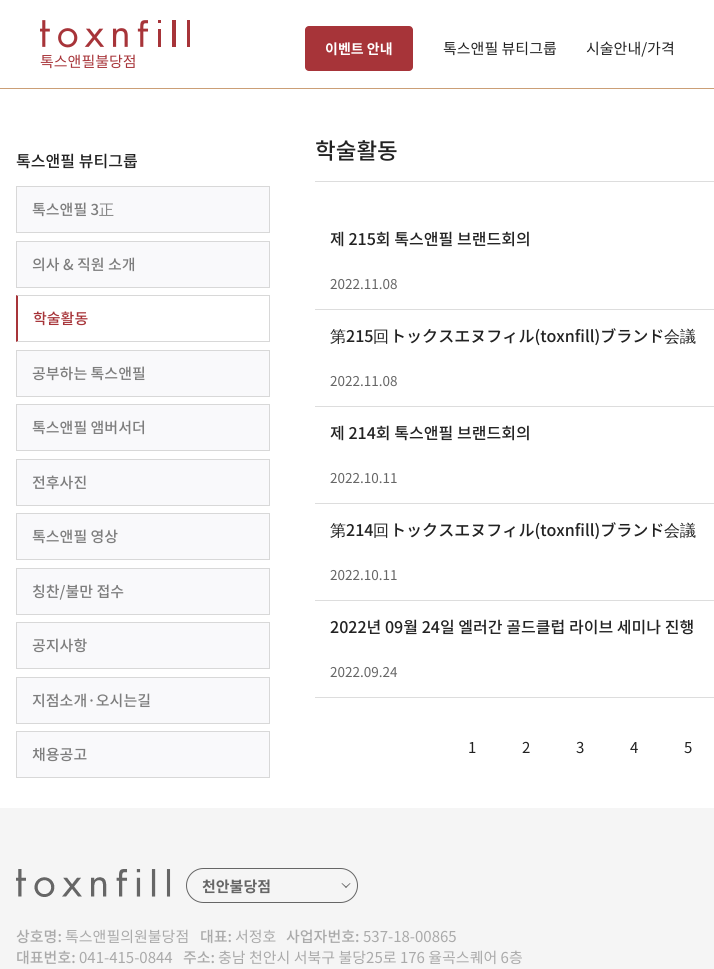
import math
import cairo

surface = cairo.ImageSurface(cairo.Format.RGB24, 714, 969)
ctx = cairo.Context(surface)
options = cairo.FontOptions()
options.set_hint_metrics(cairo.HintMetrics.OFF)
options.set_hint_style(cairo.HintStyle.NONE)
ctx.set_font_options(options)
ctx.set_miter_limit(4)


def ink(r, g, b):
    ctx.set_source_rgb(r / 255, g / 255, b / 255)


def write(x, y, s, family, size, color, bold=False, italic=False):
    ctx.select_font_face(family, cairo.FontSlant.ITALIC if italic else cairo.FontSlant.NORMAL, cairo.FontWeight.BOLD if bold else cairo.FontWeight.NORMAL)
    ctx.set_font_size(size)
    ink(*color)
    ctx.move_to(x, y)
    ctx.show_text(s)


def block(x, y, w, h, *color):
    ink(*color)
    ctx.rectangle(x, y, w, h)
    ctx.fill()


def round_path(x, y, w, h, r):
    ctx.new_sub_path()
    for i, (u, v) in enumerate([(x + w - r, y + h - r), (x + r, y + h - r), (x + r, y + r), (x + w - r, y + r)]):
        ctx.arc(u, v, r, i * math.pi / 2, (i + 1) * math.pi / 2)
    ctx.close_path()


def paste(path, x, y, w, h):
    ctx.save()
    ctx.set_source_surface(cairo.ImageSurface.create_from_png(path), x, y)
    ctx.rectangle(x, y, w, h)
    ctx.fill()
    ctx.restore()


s1 = dict(family="Noto Sans KR", size=14, color=(255, 255, 255), bold=True)
s2 = dict(family="Noto Sans KR", size=15, color=(34, 34, 34))
s3 = dict(family="Noto Sans KR", size=15, color=(167, 52, 57))
s4 = dict(family="Noto Sans KR Medium", size=16.05, color=(34, 34, 34))
s5 = dict(family="Noto Sans KR Medium", size=15, color=(125, 125, 125))
s6 = dict(family="WenQuanYi Zen Hei Medium", size=15, color=(125, 125, 125))
s7 = dict(family="Noto Sans KR Medium", size=15, color=(167, 52, 57))
s8 = dict(family="Noto Sans KR Medium", size=22.5, color=(34, 34, 34))
s9 = dict(family="Noto Sans KR", size=13.5, color=(102, 102, 102))
s10 = dict(family="WenQuanYi Zen Hei Medium", size=16.05, color=(34, 34, 34))
s11 = dict(family="Noto Sans KR", size=15, color=(102, 102, 102), bold=True)
s12 = dict(family="Noto Sans KR Medium", size=15, color=(170, 170, 170))
s13 = dict(family="Noto Sans KR", size=15, color=(170, 170, 170))

ink(255, 255, 255)
ctx.paint()
block(0, 88, 714, 1, 203, 159, 118)
ink(167, 52, 57)
round_path(305, 26, 108, 45, 4)
ctx.fill()
write(325, 54, "이벤트 안내", **s1)
write(443, 54, "톡스앤필 뷰티그룹", **s2)
write(586, 54, "시술안내/가격", **s2)
paste("pic1.png", 40, 20, 150, 28)
write(40, 67, "톡스앤필불당점", **s3)
write(16, 167, "톡스앤필 뷰티그룹", **s4)
ink(249, 249, 251)
ctx.rectangle(16.5, 186.5, 253, 46)
ctx.fill_preserve()
ink(216, 216, 216)
ctx.set_line_width(1)
ctx.stroke()
write(32, 215, "톡스앤필 3", **s5)
write(99, 215, "正", **s6)
ink(249, 249, 251)
ctx.rectangle(16.5, 241.5, 253, 46)
ctx.fill_preserve()
ink(216, 216, 216)
ctx.stroke()
write(32, 270, "의사 & 직원 소개", **s5)
ink(216, 216, 216)
ctx.new_path()
ctx.move_to(16, 295)
ctx.line_to(270, 295)
ctx.line_to(269, 296)
ctx.line_to(18, 296)
ctx.close_path()
ctx.fill()
block(269, 295, 1, 47, 216, 216, 216)
ctx.new_path()
ctx.move_to(270, 342)
ctx.line_to(16, 342)
ctx.line_to(18, 341)
ctx.line_to(269, 341)
ctx.close_path()
ctx.fill()
ink(167, 52, 57)
ctx.new_path()
ctx.move_to(16, 342)
ctx.line_to(16, 295)
ctx.line_to(18, 296)
ctx.line_to(18, 341)
ctx.close_path()
ctx.fill()
write(33, 324, "학술활동", **s7)
ink(249, 249, 251)
ctx.rectangle(16.5, 350.5, 253, 46)
ctx.fill_preserve()
ink(216, 216, 216)
ctx.stroke()
write(32, 379, "공부하는 톡스앤필", **s5)
ink(249, 249, 251)
ctx.rectangle(16.5, 404.5, 253, 46)
ctx.fill_preserve()
ink(216, 216, 216)
ctx.stroke()
write(32, 433, "톡스앤필 앰버서더", **s5)
ink(249, 249, 251)
ctx.rectangle(16.5, 459.5, 253, 46)
ctx.fill_preserve()
ink(216, 216, 216)
ctx.stroke()
write(32, 488, "전후사진", **s5)
ink(249, 249, 251)
ctx.rectangle(16.5, 513.5, 253, 46)
ctx.fill_preserve()
ink(216, 216, 216)
ctx.stroke()
write(32, 542, "톡스앤필 영상", **s5)
ink(249, 249, 251)
ctx.rectangle(16.5, 568.5, 253, 46)
ctx.fill_preserve()
ink(216, 216, 216)
ctx.stroke()
write(32, 597, "칭찬/불만 접수", **s5)
ink(249, 249, 251)
ctx.rectangle(16.5, 622.5, 253, 46)
ctx.fill_preserve()
ink(216, 216, 216)
ctx.stroke()
write(32, 651, "공지사항", **s5)
ink(249, 249, 251)
ctx.rectangle(16.5, 677.5, 253, 46)
ctx.fill_preserve()
ink(216, 216, 216)
ctx.stroke()
write(32, 706, "지점소개·오시는길", **s5)
ink(249, 249, 251)
ctx.rectangle(16.5, 731.5, 253, 46)
ctx.fill_preserve()
ink(216, 216, 216)
ctx.stroke()
write(32, 760, "채용공고", **s5)
block(315, 181, 399, 1, 221, 221, 221)
write(315, 159, "학술활동", **s8)
block(315, 309, 399, 1, 221, 221, 221)
write(330, 245, "제 215회 톡스앤필 브랜드회의", **s4)
write(330, 289, "2022.11.08", **s9)
block(315, 406, 399, 1, 221, 221, 221)
write(330, 342, "第", **s10)
write(346, 342, "215", **s4)
write(373, 342, "回", **s10)
write(390, 342, "トックスエヌフィル(toxnfill)ブランド", **s4)
write(664, 342, "会議", **s10)
write(330, 386, "2022.11.08", **s9)
block(315, 503, 399, 1, 221, 221, 221)
write(330, 439, "제 214회 톡스앤필 브랜드회의", **s4)
write(330, 483, "2022.10.11", **s9)
block(315, 600, 399, 1, 221, 221, 221)
write(330, 536, "第", **s10)
write(346, 536, "214", **s4)
write(373, 536, "回", **s10)
write(390, 536, "トックスエヌフィル(toxnfill)ブランド", **s4)
write(664, 536, "会議", **s10)
write(330, 580, "2022.10.11", **s9)
block(315, 697, 399, 1, 221, 221, 221)
write(330, 633, "2022년 09월 24일 엘러간 골드클럽 라이브 세미나 진행", **s4)
write(330, 677, "2022.09.24", **s9)
write(468, 753, "1", **s2)
write(522, 753, "2", **s2)
write(576, 753, "3", **s2)
write(630, 753, "4", **s2)
write(684, 753, "5", **s2)
block(0, 808, 714, 161, 245, 245, 245)
paste("pic2.png", 16, 869, 155, 28)
round_path(186.5, 868.5, 171, 34, 17)
ink(102, 102, 102)
ctx.stroke()
write(202, 892, "천안불당점", **s11)
ctx.new_path()
ctx.move_to(342, 883)
ctx.line_to(346.5, 887)
ctx.line_to(346, 888)
ctx.line_to(341.5, 883.5)
ctx.close_path()
ctx.fill()
ctx.new_path()
ctx.move_to(350.5, 883.5)
ctx.line_to(346, 888)
ctx.line_to(345.5, 887)
ctx.line_to(350, 883)
ctx.close_path()
ctx.fill()
write(16, 942, "상호명:", **s12)
write(65, 942, "톡스앤필의원불당점", **s13)
write(200, 942, "대표:", **s12)
write(235, 942, "서정호", **s13)
write(286, 942, "사업자번호:", **s12)
write(363, 942, "537-18-00865", **s13)
write(16, 963, "대표번호:", **s12)
write(79, 963, "041-415-0844", **s13)
write(183, 963, "주소:", **s12)
write(218, 963, "충남 천안시 서북구 불당25로 176 율곡스퀘어 6층", **s13)
surface.write_to_png("screenshot.png")
